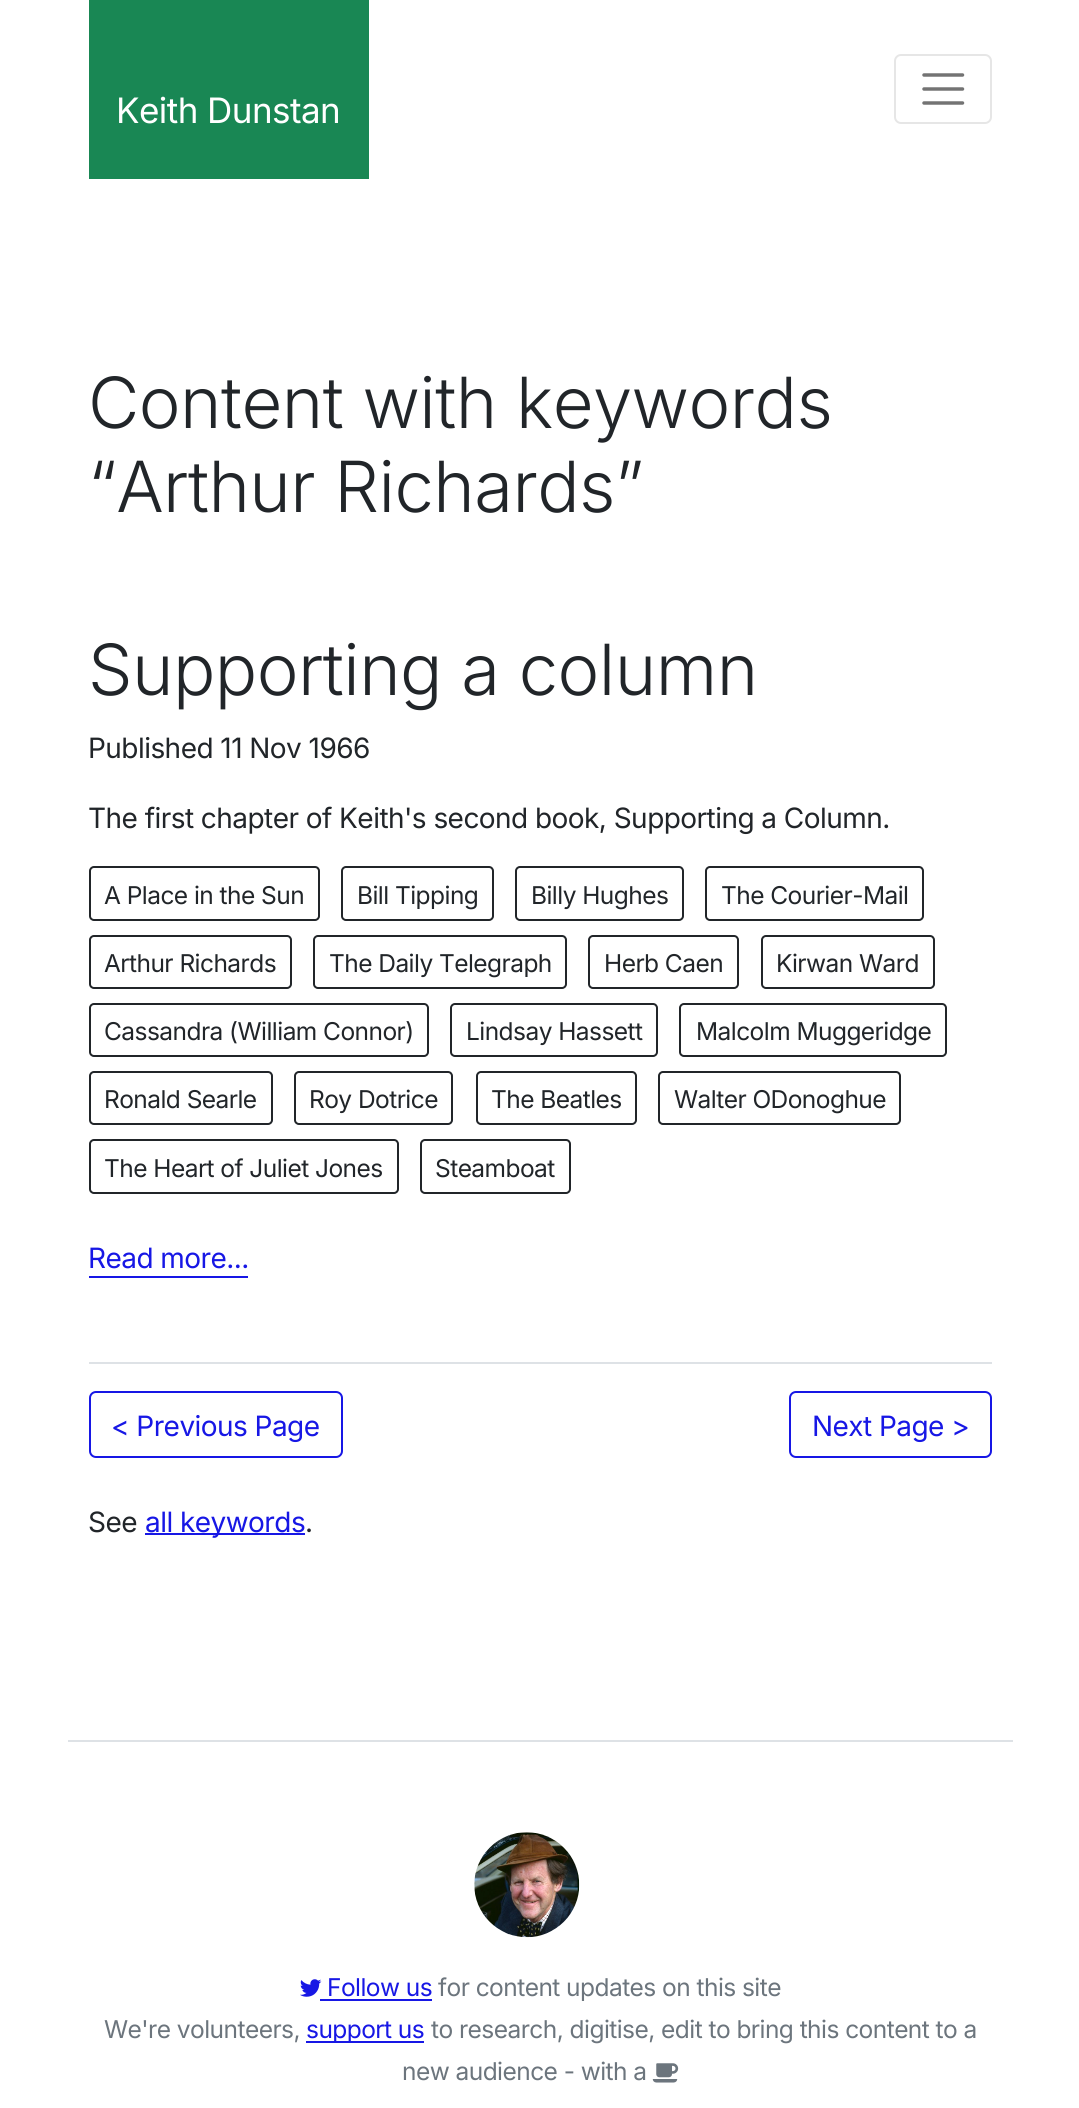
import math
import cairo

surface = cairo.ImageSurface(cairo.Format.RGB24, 1079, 2108)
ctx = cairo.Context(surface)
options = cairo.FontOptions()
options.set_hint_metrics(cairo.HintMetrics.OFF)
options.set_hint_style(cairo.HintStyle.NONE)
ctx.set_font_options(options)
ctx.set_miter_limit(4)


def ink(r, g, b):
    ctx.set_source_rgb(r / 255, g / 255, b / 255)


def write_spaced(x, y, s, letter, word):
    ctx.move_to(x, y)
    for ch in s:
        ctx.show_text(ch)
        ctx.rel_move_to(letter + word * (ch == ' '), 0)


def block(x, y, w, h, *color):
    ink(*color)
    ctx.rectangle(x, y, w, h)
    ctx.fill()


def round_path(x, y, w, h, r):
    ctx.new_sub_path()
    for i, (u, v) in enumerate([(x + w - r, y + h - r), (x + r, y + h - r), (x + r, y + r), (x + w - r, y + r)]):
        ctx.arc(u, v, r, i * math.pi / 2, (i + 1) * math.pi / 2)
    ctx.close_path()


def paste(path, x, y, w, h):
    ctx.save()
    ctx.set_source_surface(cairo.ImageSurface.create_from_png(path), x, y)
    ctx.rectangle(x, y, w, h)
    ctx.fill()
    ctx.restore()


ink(255, 255, 255)
ctx.paint()
block(89, 0, 280, 179, 25, 135, 84)
ctx.select_font_face("Inter")
ctx.set_font_size(35)
ink(255, 255, 255)
write_spaced(116, 123, "Keith Dunstan", -0.55, 0)
round_path(895, 55, 96, 68, 6)
ink(230, 230, 230)
ctx.stroke()
ctx.new_path()
ctx.move_to(924, 75)
ctx.line_to(962.5, 75)
ctx.move_to(924, 89)
ctx.line_to(962.5, 89)
ctx.move_to(924, 103)
ctx.line_to(962.5, 103)
ink(115, 115, 115)
ctx.set_line_width(3.5)
ctx.set_line_cap(cairo.LineCap.ROUND)
ctx.stroke()
ctx.select_font_face("Inter Light")
ctx.set_font_size(70.5)
ink(33, 37, 41)
write_spaced(88, 428, "Content with keywords", -0.55, 0)
write_spaced(88, 512, "“Arthur Richards”", -0.55, 0)
block(89, 1362, 903, 2, 222, 226, 230)
ink(33, 37, 41)
write_spaced(88, 695, "Supporting a column", -0.55, 0)
ctx.select_font_face("Inter")
ctx.set_font_size(28)
write_spaced(88, 758, "Published 11 Nov 1966", -0.55, 0)
write_spaced(88, 828, "The first chapter of Keith's second book, Supporting a Column.", -0.55, 0)
round_path(90, 867, 229, 53, 4)
ctx.set_line_width(2)
ctx.set_line_cap(cairo.LineCap.BUTT)
ctx.stroke()
ctx.set_font_size(24.5)
write_spaced(104, 904, "A Place in the Sun", -0.55, 0)
round_path(342, 867, 151, 53, 4)
ctx.stroke()
write_spaced(357, 904, "Bill Tipping", -0.55, 0)
round_path(516, 867, 167, 53, 4)
ctx.stroke()
write_spaced(531, 904, "Billy Hughes", -0.55, 0)
round_path(706, 867, 217, 53, 4)
ctx.stroke()
write_spaced(721, 904, "The Courier-Mail", -0.55, 0)
round_path(90, 936, 201, 52, 4)
ctx.stroke()
write_spaced(104, 972, "Arthur Richards", -0.55, 0)
round_path(314, 936, 252, 52, 4)
ctx.stroke()
write_spaced(329, 972, "The Daily Telegraph", -0.55, 0)
round_path(589, 936, 149, 52, 4)
ctx.stroke()
write_spaced(604, 972, "Herb Caen", -0.55, 0)
round_path(762, 936, 172, 52, 4)
ctx.stroke()
write_spaced(776, 972, "Kirwan Ward", -0.55, 0)
round_path(90, 1004, 338, 52, 4)
ctx.stroke()
write_spaced(104, 1040, "Cassandra (William Connor)", -0.55, 0)
round_path(451, 1004, 206, 52, 4)
ctx.stroke()
write_spaced(466, 1040, "Lindsay Hassett", -0.55, 0)
round_path(680, 1004, 266, 52, 4)
ctx.stroke()
write_spaced(696, 1040, "Malcolm Muggeridge", -0.55, 0)
round_path(90, 1072, 182, 52, 4)
ctx.stroke()
write_spaced(104, 1108, "Ronald Searle", -0.55, 0)
round_path(295, 1072, 157, 52, 4)
ctx.stroke()
write_spaced(309, 1108, "Roy Dotrice", -0.55, 0)
round_path(477, 1072, 159, 52, 4)
ctx.stroke()
write_spaced(491, 1108, "The Beatles", -0.55, 0)
round_path(659, 1072, 241, 52, 4)
ctx.stroke()
write_spaced(674, 1108, "Walter ODonoghue", -0.55, 0)
round_path(90, 1140, 308, 53, 4)
ctx.stroke()
write_spaced(104, 1177, "The Heart of Juliet Jones", -0.55, 0)
round_path(421, 1140, 149, 53, 4)
ctx.stroke()
write_spaced(435, 1177, "Steamboat", -0.55, 0)
ctx.set_font_size(28)
ink(23, 23, 229)
write_spaced(88, 1268, "Read more...", -0.55, 0)
gradient = cairo.LinearGradient(89, 1277, 726, 1277)
gradient.add_color_stop_rgba(0, 0.09, 0.09, 0.898, 1)
gradient.add_color_stop_rgba(0.25, 0.09, 0.09, 0.898, 1)
gradient.add_color_stop_rgba(0.25, 1, 1, 1, 1)
gradient.add_color_stop_rgba(0.5, 1, 1, 1, 1)
gradient.add_color_stop_rgba(0.5, 0.09, 0.09, 0.898, 1)
gradient.add_color_stop_rgba(0.75, 0.09, 0.09, 0.898, 1)
gradient.add_color_stop_rgba(0.75, 1, 1, 1, 1)
gradient.add_color_stop_rgba(1, 1, 1, 1, 1)
ctx.set_source(gradient)
ctx.rectangle(89, 1276, 160, 2)
ctx.fill()
round_path(90, 1392, 252, 65, 6)
ink(23, 23, 229)
ctx.stroke()
write_spaced(111, 1436, "< Previous Page", -0.55, 0)
round_path(790, 1392, 201, 65, 6)
ctx.stroke()
write_spaced(812, 1436, "Next Page >", -0.55, 0)
ink(33, 37, 41)
write_spaced(88, 1532, "See", -0.55, 0)
block(145, 1533, 160, 2, 23, 23, 229)
write_spaced(145, 1532, "all keywords", -0.55, 0)
ink(33, 37, 41)
write_spaced(305, 1532, ".", -0.55, 0)
block(68, 1740, 945, 2, 222, 226, 230)
paste("pic1.png", 474, 1832, 106, 106)
paste("pic2.png", 300, 1979, 22, 18)
ctx.set_font_size(24.5)
ink(23, 23, 229)
write_spaced(327, 1996, "Follow us", -0.55, 0)
block(320, 1999, 112, 2, 23, 23, 229)
ink(108, 117, 125)
write_spaced(438, 1996, "for content updates on this site", -0.55, 0)
write_spaced(104, 2038, "We're volunteers,", -0.55, 0)
block(306, 2041, 118, 2, 23, 23, 229)
write_spaced(306, 2038, "support us", -0.55, 0)
ink(108, 117, 125)
write_spaced(431, 2038, "to research, digitise, edit to bring this content to a", -0.55, 0)
write_spaced(402, 2080, "new audience - with a", -0.55, 0)
paste("pic3.png", 652, 2063, 27, 20)
surface.write_to_png("screenshot.png")
